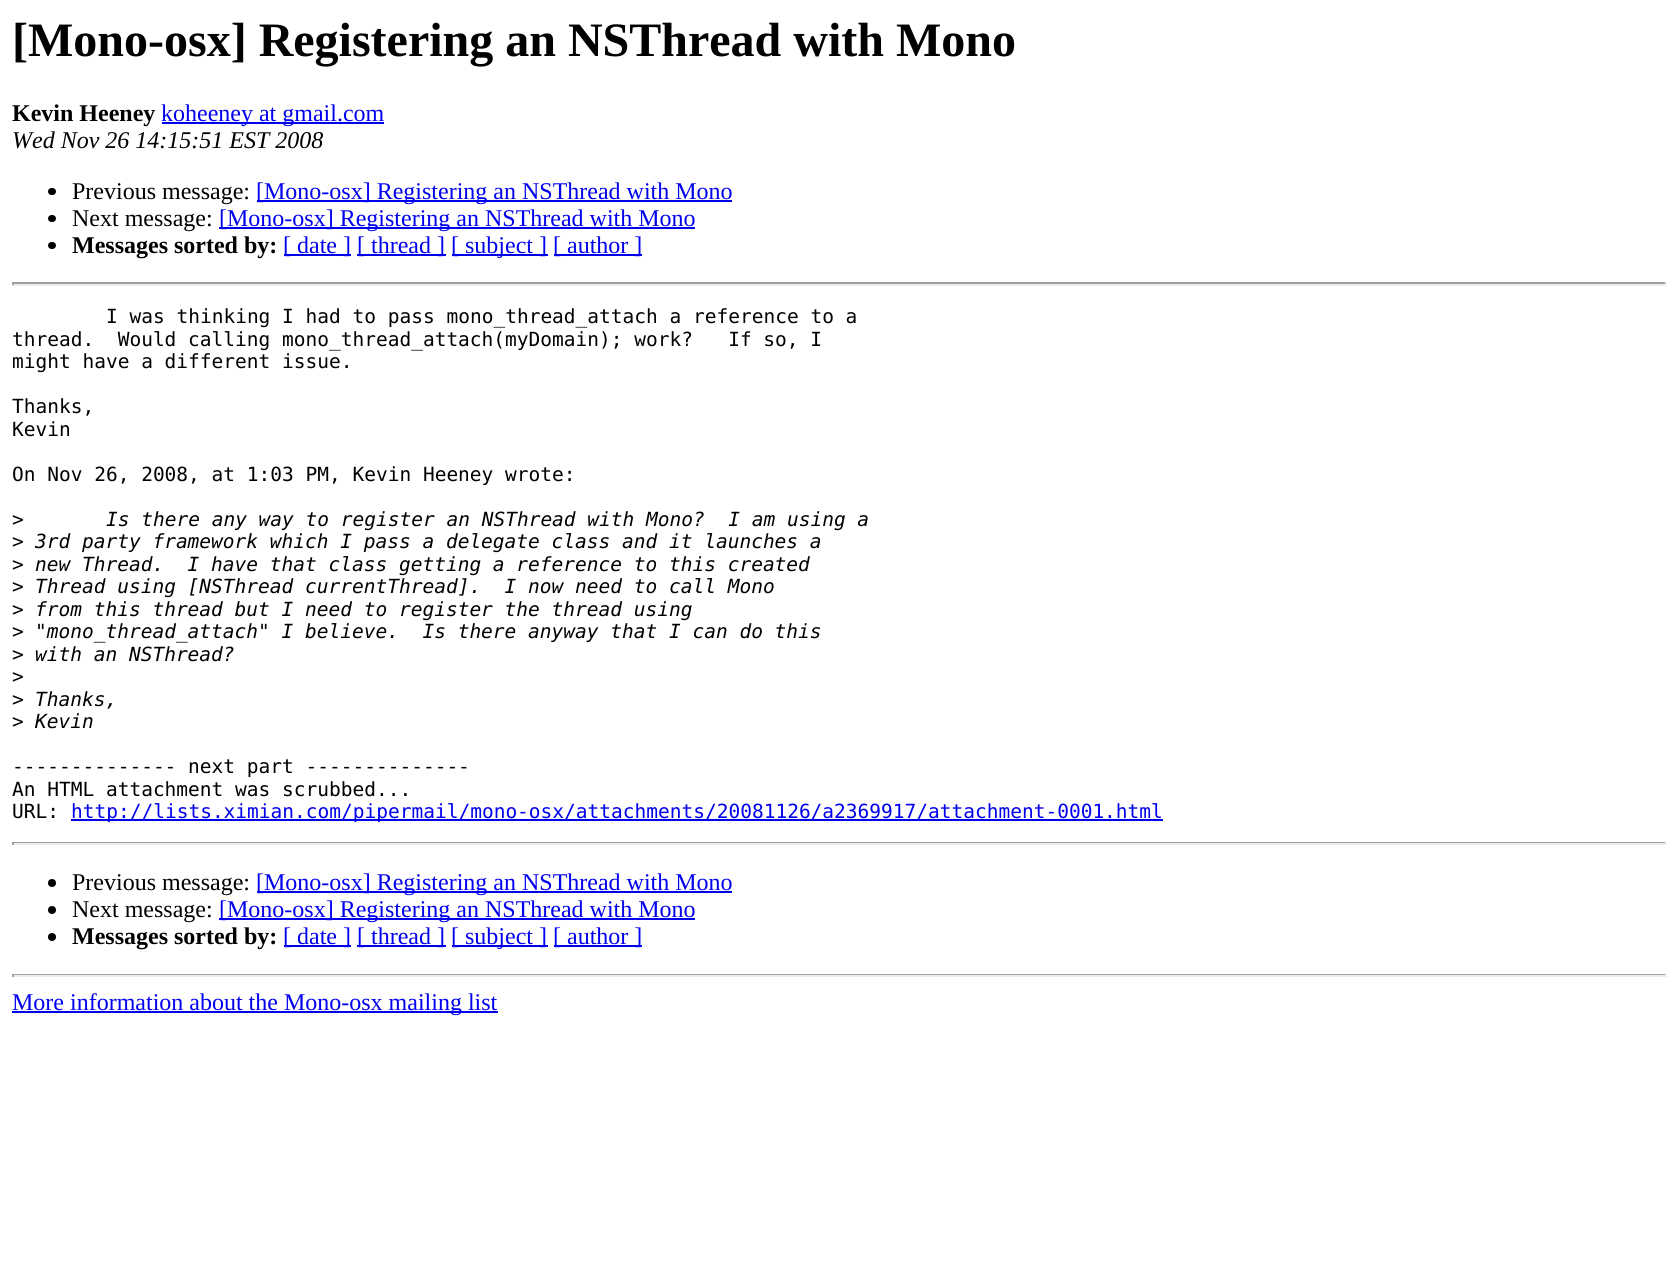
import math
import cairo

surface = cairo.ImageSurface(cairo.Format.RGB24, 1678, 1266)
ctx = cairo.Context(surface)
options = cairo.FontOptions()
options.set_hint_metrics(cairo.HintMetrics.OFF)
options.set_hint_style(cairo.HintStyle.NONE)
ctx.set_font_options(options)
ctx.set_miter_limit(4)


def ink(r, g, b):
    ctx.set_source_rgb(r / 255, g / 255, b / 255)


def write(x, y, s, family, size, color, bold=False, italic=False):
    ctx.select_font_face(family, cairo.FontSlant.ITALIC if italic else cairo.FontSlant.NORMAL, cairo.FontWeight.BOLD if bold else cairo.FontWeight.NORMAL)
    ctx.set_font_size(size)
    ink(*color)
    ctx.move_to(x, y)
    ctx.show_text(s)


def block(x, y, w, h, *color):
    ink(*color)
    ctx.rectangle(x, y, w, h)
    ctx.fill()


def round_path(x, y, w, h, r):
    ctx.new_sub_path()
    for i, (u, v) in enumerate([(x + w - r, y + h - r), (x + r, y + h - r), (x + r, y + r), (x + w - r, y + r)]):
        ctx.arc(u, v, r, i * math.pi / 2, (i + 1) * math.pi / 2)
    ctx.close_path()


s1 = dict(family="Liberation Serif", size=48, color=(0, 0, 0), bold=True)
s2 = dict(family="Liberation Serif", size=24, color=(0, 0, 0), bold=True)
s3 = dict(family="Liberation Serif", size=24, color=(0, 0, 238))
s4 = dict(family="Liberation Serif", size=24, color=(0, 0, 0), italic=True)
s5 = dict(family="Liberation Serif", size=24, color=(0, 0, 0))
s6 = dict(family="DejaVu Sans Mono", size=19.5, color=(0, 0, 0))
s7 = dict(family="DejaVu Sans Mono", size=19.5, color=(0, 0, 0), italic=True)
s8 = dict(family="DejaVu Sans Mono", size=19.5, color=(0, 0, 238))

ink(255, 255, 255)
ctx.paint()
write(12, 56, "[Mono-osx] Registering an NSThread with Mono", **s1)
write(12, 121, "Kevin Heeney", **s2)
block(162, 122, 222, 2, 0, 0, 238)
write(161, 121, "koheeney at gmail.com", **s3)
write(12, 148, "Wed Nov 26 14:15:51 EST 2008", **s4)
round_path(48, 188, 8, 7, 3.5)
ctx.fill()
write(72, 199, "Previous message:", **s5)
block(257, 200, 475, 2, 0, 0, 238)
write(256, 199, "[Mono-osx] Registering an NSThread with Mono", **s3)
ink(0, 0, 0)
round_path(48, 215, 8, 7, 3.5)
ctx.fill()
write(72, 226, "Next message:", **s5)
block(219, 227, 476, 2, 0, 0, 238)
write(219, 226, "[Mono-osx] Registering an NSThread with Mono", **s3)
ink(0, 0, 0)
round_path(48, 242, 8, 7, 3.5)
ctx.fill()
write(72, 253, "Messages sorted by:", **s2)
block(284, 254, 67, 2, 0, 0, 238)
write(283, 253, "[ date ]", **s3)
block(357, 254, 89, 2, 0, 0, 238)
write(357, 253, "[ thread ]", **s3)
block(452, 254, 96, 2, 0, 0, 238)
write(451, 253, "[ subject ]", **s3)
block(554, 254, 88, 2, 0, 0, 238)
write(553, 253, "[ author ]", **s3)
block(12, 282, 1655, 2, 159, 159, 159)
block(1665, 282, 2, 3, 238, 238, 238)
block(12, 284, 1655, 2, 238, 238, 238)
block(12, 282, 2, 3, 159, 159, 159)
write(106, 323, "I was thinking I had to pass mono_thread_attach a reference to a", **s6)
write(12, 346, "thread.  Would calling mono_thread_attach(myDomain); work?   If so, I", **s6)
write(12, 368, "might have a different issue.", **s6)
write(12, 413, "Thanks,", **s6)
write(12, 436, "Kevin", **s6)
write(12, 481, "On Nov 26, 2008, at 1:03 PM, Kevin Heeney wrote:", **s6)
write(12, 526, ">", **s6)
write(106, 526, "Is there any way to register an NSThread with Mono?  I am using a", **s7)
write(12, 548, ">", **s6)
write(35, 548, "3rd party framework which I pass a delegate class and it launches a", **s7)
write(12, 571, ">", **s6)
write(35, 571, "new Thread.  I have that class getting a reference to this created", **s7)
write(12, 593, ">", **s6)
write(35, 593, "Thread using [NSThread currentThread].  I now need to call Mono", **s7)
write(12, 616, ">", **s6)
write(35, 616, "from this thread but I need to register the thread using", **s7)
write(12, 638, ">", **s6)
write(35, 638, "\"mono_thread_attach\" I believe.  Is there anyway that I can do this", **s7)
write(12, 661, ">", **s6)
write(35, 661, "with an NSThread?", **s7)
write(12, 683, ">", **s6)
write(12, 706, ">", **s6)
write(35, 706, "Thanks,", **s7)
write(12, 728, ">", **s6)
write(35, 728, "Kevin", **s7)
write(12, 773, "-------------- next part --------------", **s6)
write(12, 796, "An HTML attachment was scrubbed...", **s6)
write(12, 818, "URL:", **s6)
block(71, 819, 1092, 2, 0, 0, 238)
write(71, 818, "http://lists.ximian.com/pipermail/mono-osx/attachments/20081126/a2369917/attachment-0001.html", **s8)
block(12, 842, 1655, 1, 159, 159, 159)
block(1665, 842, 2, 3, 238, 238, 238)
block(12, 843, 1655, 2, 238, 238, 238)
block(12, 842, 2, 3, 159, 159, 159)
ink(0, 0, 0)
ctx.new_path()
ctx.arc(52, 883, 4, 0, 2 * math.pi)
ctx.fill()
write(72, 890, "Previous message:", **s5)
block(257, 891, 475, 2, 0, 0, 238)
write(256, 890, "[Mono-osx] Registering an NSThread with Mono", **s3)
ink(0, 0, 0)
ctx.new_path()
ctx.arc(52, 910, 4, 0, 2 * math.pi)
ctx.fill()
write(72, 917, "Next message:", **s5)
block(219, 918, 476, 2, 0, 0, 238)
write(219, 917, "[Mono-osx] Registering an NSThread with Mono", **s3)
ink(0, 0, 0)
ctx.new_path()
ctx.arc(52, 937, 4, 0, 2 * math.pi)
ctx.fill()
write(72, 944, "Messages sorted by:", **s2)
block(284, 945, 67, 2, 0, 0, 238)
write(283, 944, "[ date ]", **s3)
block(357, 945, 89, 2, 0, 0, 238)
write(357, 944, "[ thread ]", **s3)
block(452, 945, 96, 2, 0, 0, 238)
write(451, 944, "[ subject ]", **s3)
block(554, 945, 88, 2, 0, 0, 238)
write(553, 944, "[ author ]", **s3)
block(12, 974, 1655, 1, 159, 159, 159)
block(1665, 974, 2, 3, 238, 238, 238)
block(12, 975, 1655, 2, 238, 238, 238)
block(12, 974, 2, 3, 159, 159, 159)
block(12, 1011, 486, 2, 0, 0, 238)
write(12, 1010, "More information about the Mono-osx mailing list", **s3)
surface.write_to_png("screenshot.png")
